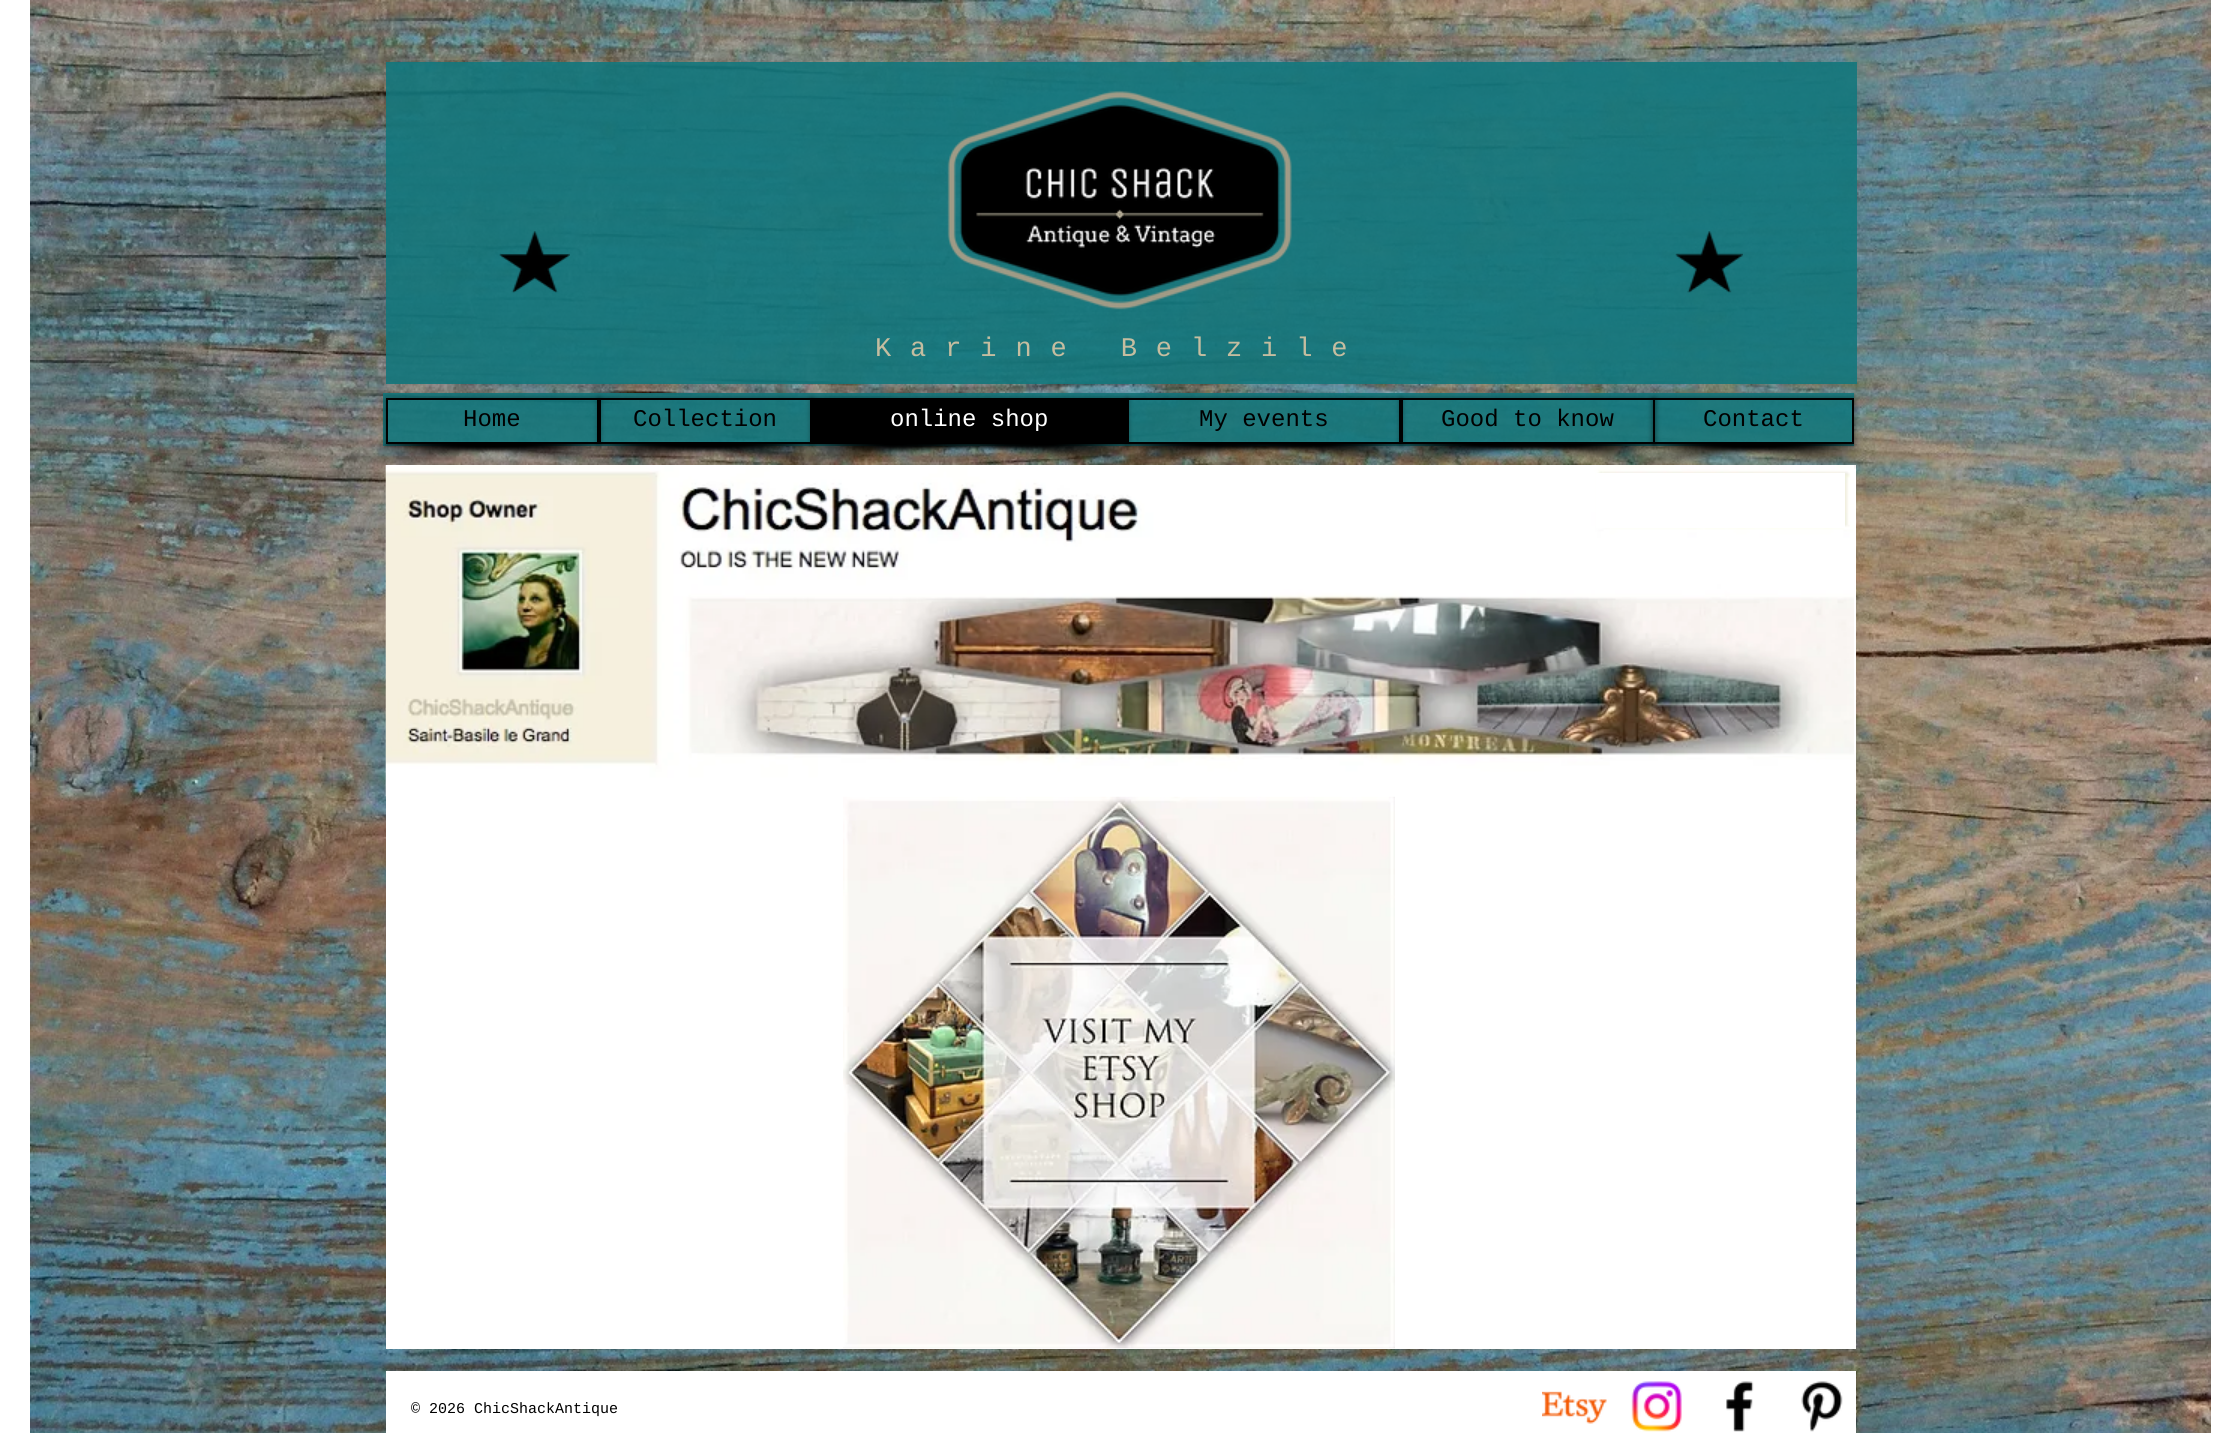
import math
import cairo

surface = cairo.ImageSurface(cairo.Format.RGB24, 2240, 1433)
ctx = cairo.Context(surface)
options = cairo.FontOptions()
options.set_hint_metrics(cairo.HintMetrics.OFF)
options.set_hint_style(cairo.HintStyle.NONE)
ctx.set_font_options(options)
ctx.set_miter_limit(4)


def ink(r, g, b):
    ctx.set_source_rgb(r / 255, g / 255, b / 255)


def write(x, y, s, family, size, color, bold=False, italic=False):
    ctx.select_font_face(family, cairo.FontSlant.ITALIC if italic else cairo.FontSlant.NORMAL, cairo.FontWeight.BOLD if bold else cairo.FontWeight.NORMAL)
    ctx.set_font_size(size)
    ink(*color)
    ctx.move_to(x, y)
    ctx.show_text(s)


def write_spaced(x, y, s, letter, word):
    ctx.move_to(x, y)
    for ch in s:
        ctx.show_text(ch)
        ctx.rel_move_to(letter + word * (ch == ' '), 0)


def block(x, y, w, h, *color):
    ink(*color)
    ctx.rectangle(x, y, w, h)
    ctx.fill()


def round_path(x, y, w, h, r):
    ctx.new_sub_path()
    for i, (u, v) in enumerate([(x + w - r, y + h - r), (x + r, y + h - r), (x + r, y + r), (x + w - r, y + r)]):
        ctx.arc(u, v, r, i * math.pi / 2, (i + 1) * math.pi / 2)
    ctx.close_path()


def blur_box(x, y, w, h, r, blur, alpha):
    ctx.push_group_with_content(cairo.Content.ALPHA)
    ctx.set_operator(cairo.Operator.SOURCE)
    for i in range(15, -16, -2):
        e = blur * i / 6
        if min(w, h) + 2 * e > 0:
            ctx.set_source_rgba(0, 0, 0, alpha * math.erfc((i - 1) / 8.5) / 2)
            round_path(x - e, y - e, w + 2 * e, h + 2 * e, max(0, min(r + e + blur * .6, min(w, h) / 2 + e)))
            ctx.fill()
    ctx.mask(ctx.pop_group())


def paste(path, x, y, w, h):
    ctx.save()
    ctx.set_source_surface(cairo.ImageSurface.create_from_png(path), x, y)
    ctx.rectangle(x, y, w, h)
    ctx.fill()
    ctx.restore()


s1 = dict(family="Liberation Mono", size=24, color=(0, 0, 0))
s2 = dict(family="Liberation Mono", size=24, color=(255, 255, 255))
s3 = dict(family="Liberation Mono", size=15, color=(0, 0, 0))

ink(255, 255, 255)
ctx.paint()
paste("pic1.png", 30, 0, 2181, 1433)
ctx.set_source_rgba(0.078, 0.467, 0.49, 0.9)
ctx.rectangle(386, 62, 1471, 322)
ctx.fill()
paste("pic2.png", 499, 231, 71, 62)
paste("pic3.png", 947, 91, 345, 219)
paste("pic4.png", 1675, 231, 68, 62)
ctx.select_font_face("Liberation Mono")
ctx.set_font_size(27)
ink(197, 189, 160)
write_spaced(875, 356, "Karine Belzile", 18.9, 0)
ctx.set_source_rgba(0.078, 0.467, 0.49, 0.9)
ctx.rectangle(383, 393, 1471, 53)
ctx.fill()
block(386, 465, 1470, 884, 255, 255, 255)
paste("pic5.png", 377, 444, 213, 25)
paste("pic6.png", 397, 444, 213, 21)
ctx.save()
ctx.set_fill_rule(cairo.FillRule.EVEN_ODD)
ctx.new_path()
ctx.move_to(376, 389)
ctx.line_to(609, 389)
ctx.line_to(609, 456)
ctx.line_to(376, 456)
ctx.close_path()
ctx.move_to(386, 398)
ctx.line_to(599, 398)
ctx.line_to(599, 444)
ctx.line_to(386, 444)
ctx.close_path()
ctx.clip()
ink(0, 0, 0)
blur_box(386, 399, 213, 47, 0, 3, 0.6)
ctx.restore()
ctx.rectangle(387, 399, 211, 44)
ink(0, 0, 0)
ctx.stroke()
write(463, 426, "Home", **s1)
paste("pic7.png", 587, 444, 216, 21)
paste("pic8.png", 610, 444, 213, 21)
ctx.save()
ctx.set_fill_rule(cairo.FillRule.EVEN_ODD)
ctx.new_path()
ctx.move_to(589, 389)
ctx.line_to(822, 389)
ctx.line_to(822, 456)
ctx.line_to(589, 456)
ctx.close_path()
ctx.move_to(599, 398)
ctx.line_to(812, 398)
ctx.line_to(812, 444)
ctx.line_to(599, 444)
ctx.close_path()
ctx.clip()
ink(0, 0, 0)
blur_box(599, 399, 213, 47, 0, 3, 0.6)
ctx.restore()
ctx.rectangle(600, 399, 211, 44)
ctx.stroke()
write(633, 426, "Collection", **s1)
paste("pic9.png", 800, 444, 216, 21)
paste("pic10.png", 944, 444, 194, 21)
ink(0, 0, 0)
blur_box(812, 399, 315, 47, 0, 3, 0.6)
block(812, 398, 315, 46, 0, 0, 0)
write(890, 426, "online shop", **s2)
paste("pic11.png", 1115, 444, 216, 21)
paste("pic12.png", 1232, 444, 181, 21)
ctx.save()
ctx.set_fill_rule(cairo.FillRule.EVEN_ODD)
ctx.new_path()
ctx.move_to(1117, 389)
ctx.line_to(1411, 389)
ctx.line_to(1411, 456)
ctx.line_to(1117, 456)
ctx.close_path()
ctx.move_to(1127, 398)
ctx.line_to(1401, 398)
ctx.line_to(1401, 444)
ctx.line_to(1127, 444)
ctx.close_path()
ctx.clip()
ink(0, 0, 0)
blur_box(1127, 399, 274, 47, 0, 3, 0.6)
ctx.restore()
ctx.rectangle(1128, 399, 272, 44)
ink(0, 0, 0)
ctx.stroke()
write(1199, 426, "My events", **s1)
paste("pic13.png", 1389, 444, 217, 21)
paste("pic14.png", 1488, 444, 178, 21)
ctx.save()
ctx.set_fill_rule(cairo.FillRule.EVEN_ODD)
ctx.new_path()
ctx.move_to(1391, 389)
ctx.line_to(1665, 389)
ctx.line_to(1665, 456)
ctx.line_to(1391, 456)
ctx.close_path()
ctx.move_to(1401, 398)
ctx.line_to(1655, 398)
ctx.line_to(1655, 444)
ctx.line_to(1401, 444)
ctx.close_path()
ctx.clip()
ink(0, 0, 0)
blur_box(1401, 399, 254, 47, 0, 3, 0.6)
ctx.restore()
ctx.rectangle(1402, 399, 252, 44)
ctx.stroke()
write(1441, 426, "Good to know", **s1)
paste("pic15.png", 1641, 444, 218, 21)
paste("pic16.png", 1655, 444, 209, 25)
ctx.save()
ctx.set_fill_rule(cairo.FillRule.EVEN_ODD)
ctx.new_path()
ctx.move_to(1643, 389)
ctx.line_to(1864, 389)
ctx.line_to(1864, 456)
ctx.line_to(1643, 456)
ctx.close_path()
ctx.move_to(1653, 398)
ctx.line_to(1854, 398)
ctx.line_to(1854, 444)
ctx.line_to(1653, 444)
ctx.close_path()
ctx.clip()
ink(0, 0, 0)
blur_box(1653, 399, 201, 47, 0, 3, 0.6)
ctx.restore()
ctx.rectangle(1654, 399, 199, 44)
ctx.stroke()
write(1703, 426, "Contact", **s1)
paste("pic17.png", 385, 465, 1469, 332)
block(1596, 473, 249, 55, 255, 255, 255)
paste("pic18.png", 843, 796, 552, 553)
block(386, 1371, 1470, 62, 255, 255, 255)
write(411, 1413, "© 2026 ChicShackAntique", **s3)
paste("pic19.png", 1542, 1391, 65, 33)
paste("pic20.png", 1631, 1381, 51, 51)
paste("pic21.png", 1726, 1381, 28, 51)
paste("pic22.png", 1801, 1381, 42, 51)
surface.write_to_png("screenshot.png")
